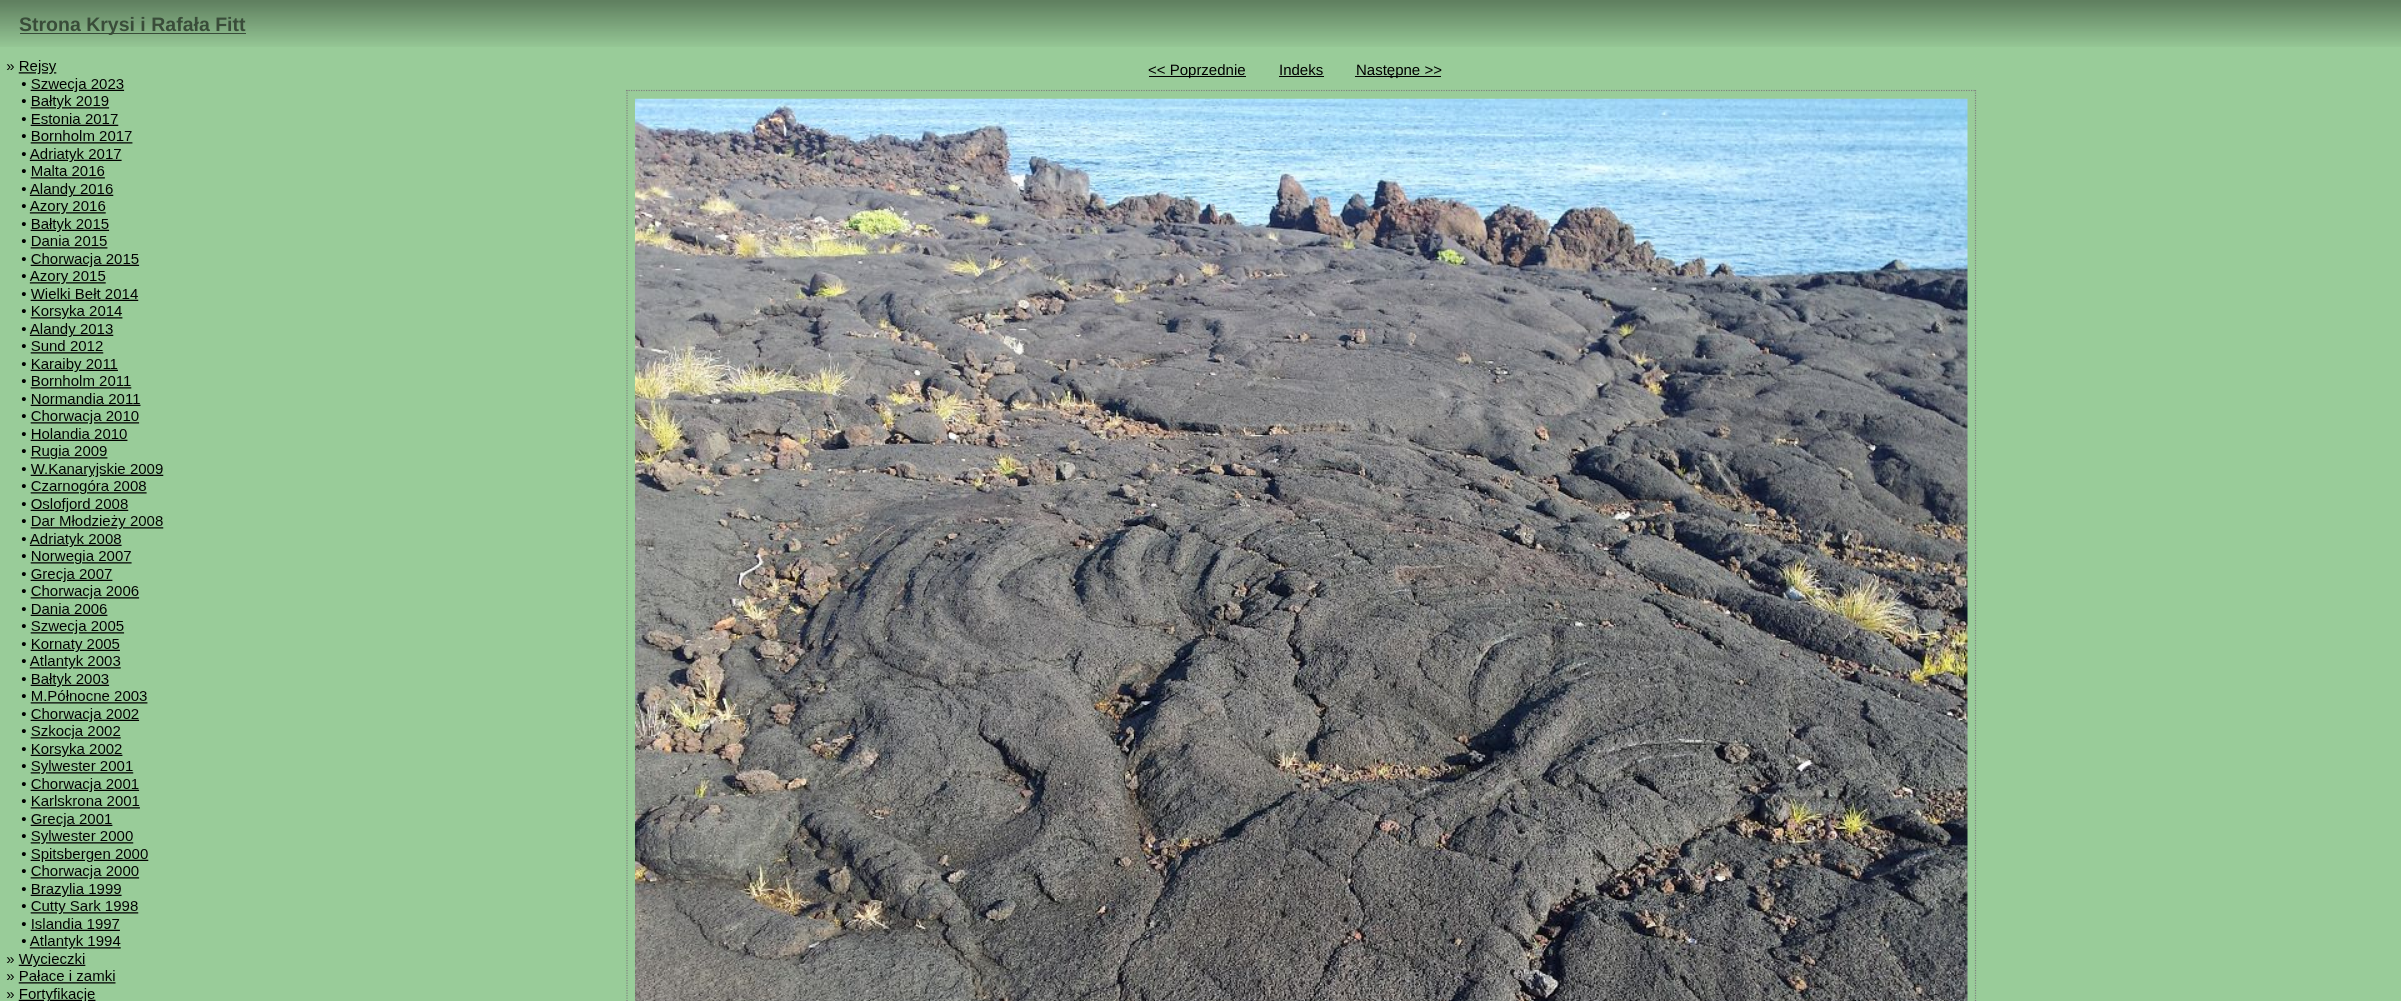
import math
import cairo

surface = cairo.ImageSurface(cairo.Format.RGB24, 2401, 1001)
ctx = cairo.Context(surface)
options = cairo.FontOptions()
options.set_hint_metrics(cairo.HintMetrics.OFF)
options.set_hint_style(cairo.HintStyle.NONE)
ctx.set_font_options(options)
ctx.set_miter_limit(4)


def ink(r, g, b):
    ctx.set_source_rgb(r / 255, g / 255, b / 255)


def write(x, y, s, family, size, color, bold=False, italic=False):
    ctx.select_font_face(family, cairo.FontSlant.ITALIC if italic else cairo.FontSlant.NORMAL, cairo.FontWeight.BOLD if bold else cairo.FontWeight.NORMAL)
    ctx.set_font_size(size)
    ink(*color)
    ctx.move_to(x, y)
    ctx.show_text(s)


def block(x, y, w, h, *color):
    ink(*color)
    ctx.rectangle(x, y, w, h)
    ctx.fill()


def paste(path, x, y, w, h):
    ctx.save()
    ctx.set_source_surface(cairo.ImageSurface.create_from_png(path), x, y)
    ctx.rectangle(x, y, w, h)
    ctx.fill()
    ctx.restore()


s1 = dict(family="Liberation Sans", size=19.5, color=(57, 76, 57), bold=True)
s2 = dict(family="Liberation Sans", size=15, color=(0, 0, 0))

ink(153, 204, 153)
ctx.paint()
paste("pic1.png", 0, 0, 2401, 47)
block(20, 33, 226, 1, 57, 76, 57)
write(19, 31, "Strona Krysi i Rafała Fitt", **s1)
paste("pic2.png", 6, 60, 158, 941)
block(1149, 76, 97, 1, 0, 0, 0)
write(1148, 75, "<< Poprzednie", **s2)
write(1279, 75, "Indeks", **s2)
block(1279, 76, 45, 1, 0, 0, 0)
block(1355, 76, 86, 1, 0, 0, 0)
write(1356, 75, "Następne >>", **s2)
ctx.new_path()
ctx.move_to(626, 90.5)
ctx.line_to(1976, 90.5)
ink(128, 128, 128)
ctx.set_line_width(1.2)
ctx.set_dash([1.25, 1.25])
ctx.stroke()
ctx.new_path()
ctx.move_to(627, 90)
ctx.line_to(627, 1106)
ctx.stroke()
paste("pic3.png", 635, 98, 1333, 903)
ctx.new_path()
ctx.move_to(1975.5, 90)
ctx.line_to(1975.5, 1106)
ctx.stroke()
surface.write_to_png("screenshot.png")
